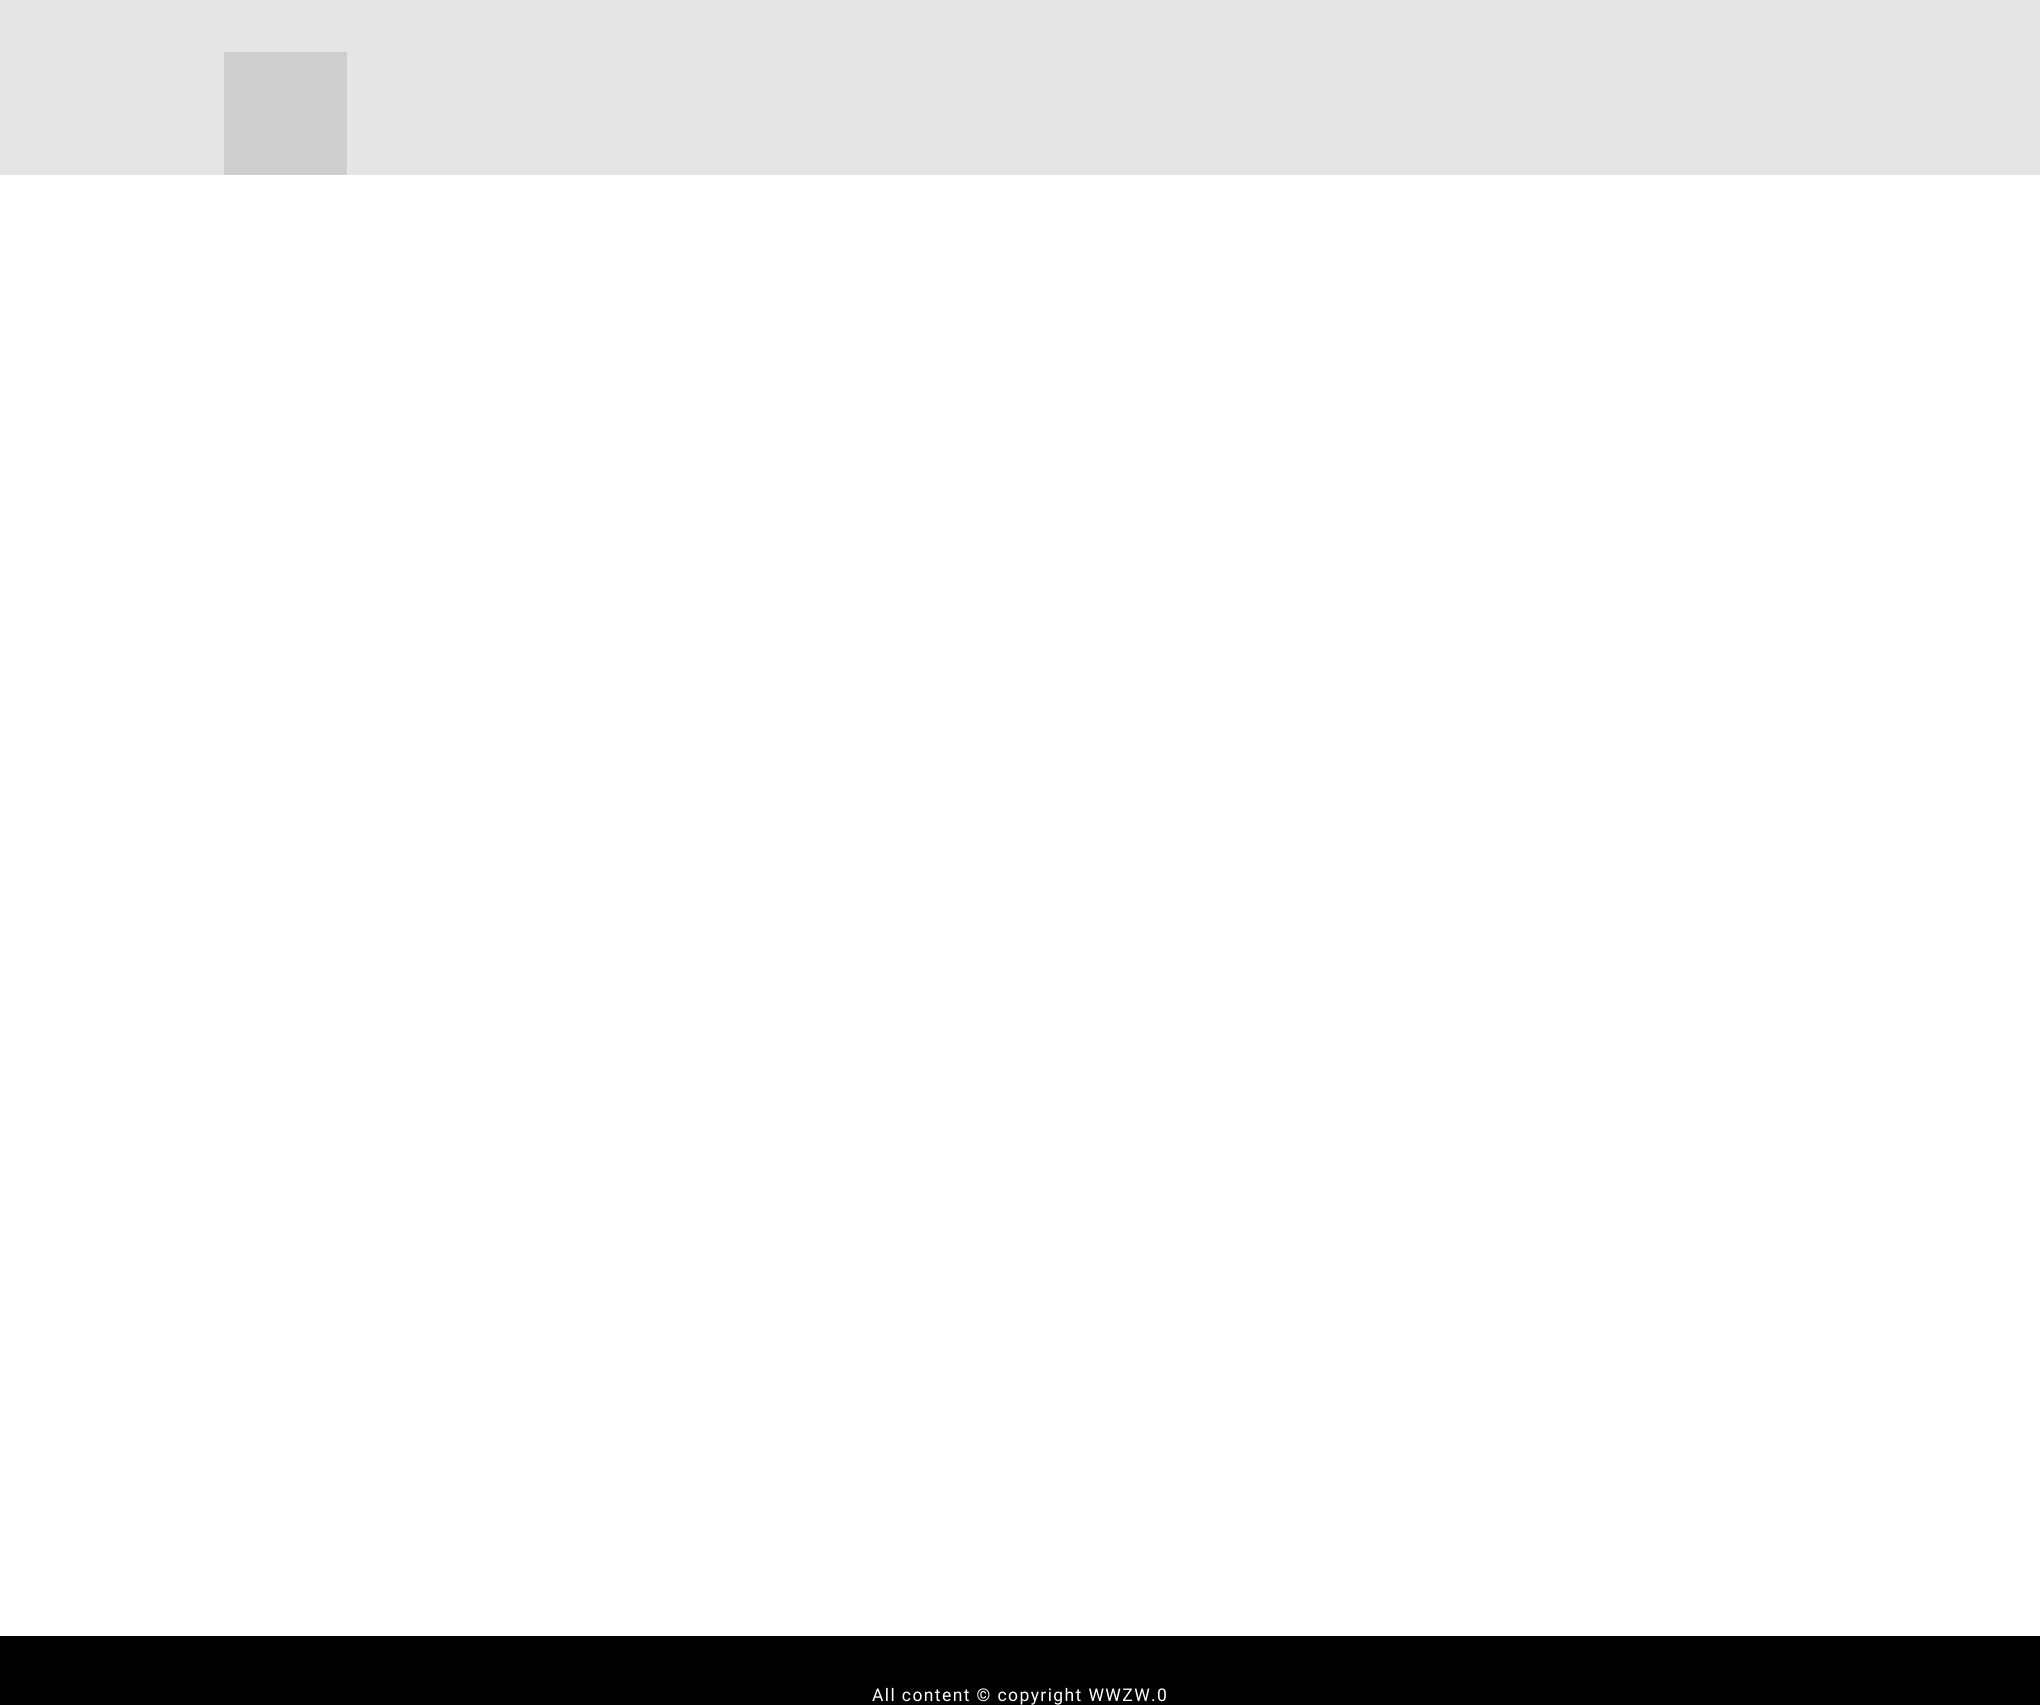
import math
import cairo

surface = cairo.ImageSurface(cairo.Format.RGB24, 2040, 1705)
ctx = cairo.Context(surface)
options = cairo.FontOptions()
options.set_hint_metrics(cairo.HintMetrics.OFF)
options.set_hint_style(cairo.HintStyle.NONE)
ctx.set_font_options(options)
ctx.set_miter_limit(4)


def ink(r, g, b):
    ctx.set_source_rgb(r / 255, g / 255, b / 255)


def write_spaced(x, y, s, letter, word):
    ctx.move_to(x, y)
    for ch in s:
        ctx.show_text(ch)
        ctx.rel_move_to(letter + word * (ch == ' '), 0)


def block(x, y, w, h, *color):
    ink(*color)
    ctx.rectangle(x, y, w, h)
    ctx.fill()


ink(255, 255, 255)
ctx.paint()
block(0, 0, 2040, 175, 229, 229, 229)
block(224, 52, 123, 123, 206, 206, 206)
block(0, 1636, 2040, 69, 0, 0, 0)
ctx.select_font_face("Roboto")
ctx.set_font_size(17.5)
ink(255, 255, 255)
write_spaced(872, 1701, "All content © copyright WWZW.0", 1.4, 0)
surface.write_to_png("screenshot.png")
